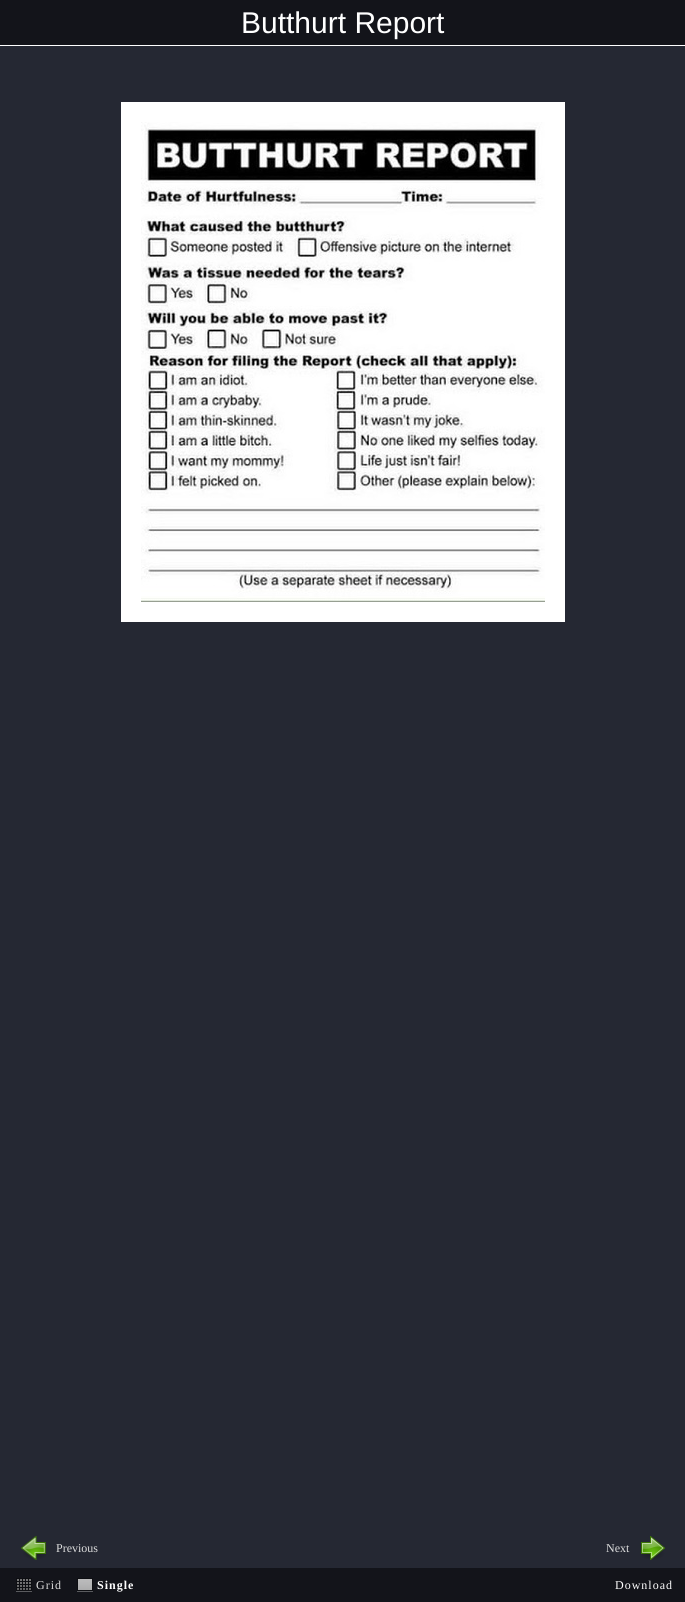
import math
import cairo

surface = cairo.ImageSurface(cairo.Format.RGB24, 685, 1602)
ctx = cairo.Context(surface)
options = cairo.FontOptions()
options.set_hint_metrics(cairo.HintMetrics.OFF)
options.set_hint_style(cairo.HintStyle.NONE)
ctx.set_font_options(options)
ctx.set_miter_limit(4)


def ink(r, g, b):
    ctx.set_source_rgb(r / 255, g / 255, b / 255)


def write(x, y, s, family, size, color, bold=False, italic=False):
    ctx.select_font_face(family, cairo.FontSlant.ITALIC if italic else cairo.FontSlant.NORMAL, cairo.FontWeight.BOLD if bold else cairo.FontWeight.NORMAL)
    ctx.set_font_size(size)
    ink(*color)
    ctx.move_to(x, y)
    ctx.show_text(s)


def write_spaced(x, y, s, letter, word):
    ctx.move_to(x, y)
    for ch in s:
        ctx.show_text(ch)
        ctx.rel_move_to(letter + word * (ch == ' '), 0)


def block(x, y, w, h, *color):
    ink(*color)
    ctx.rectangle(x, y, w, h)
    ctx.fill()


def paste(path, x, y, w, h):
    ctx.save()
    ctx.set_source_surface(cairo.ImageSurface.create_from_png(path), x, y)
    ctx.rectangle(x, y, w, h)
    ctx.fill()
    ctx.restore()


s1 = dict(family="Liberation Sans", size=30, color=(255, 255, 255))
s2 = dict(family="Liberation Serif", size=12, color=(221, 221, 221))

ink(37, 40, 51)
ctx.paint()
block(0, 0, 685, 45, 19, 20, 26)
block(0, 45, 685, 1, 255, 255, 255)
write(241, 33, "Butthurt Report", **s1)
ctx.rectangle(131, 112, 424, 500)
ctx.set_line_width(20)
ctx.stroke()
paste("pic1.png", 141, 122, 404, 480)
paste("pic2.png", 21, 1536, 25, 24)
write(56, 1552, "Previous", **s2)
paste("pic3.png", 641, 1536, 24, 24)
write(606, 1552, "Next", **s2)
block(0, 1568, 685, 34, 19, 20, 26)
paste("pic4.png", 16, 1578, 16, 14)
ink(221, 221, 221)
write_spaced(36, 1589, "Grid", 1, 0)
paste("pic5.png", 77, 1578, 16, 14)
ctx.select_font_face("Liberation Serif", cairo.FontSlant.NORMAL, cairo.FontWeight.BOLD)
ink(255, 255, 255)
write_spaced(97, 1589, "Single", 1, 0)
ctx.select_font_face("Liberation Serif")
write_spaced(615, 1589, "Download", 1, 0)
surface.write_to_png("screenshot.png")
